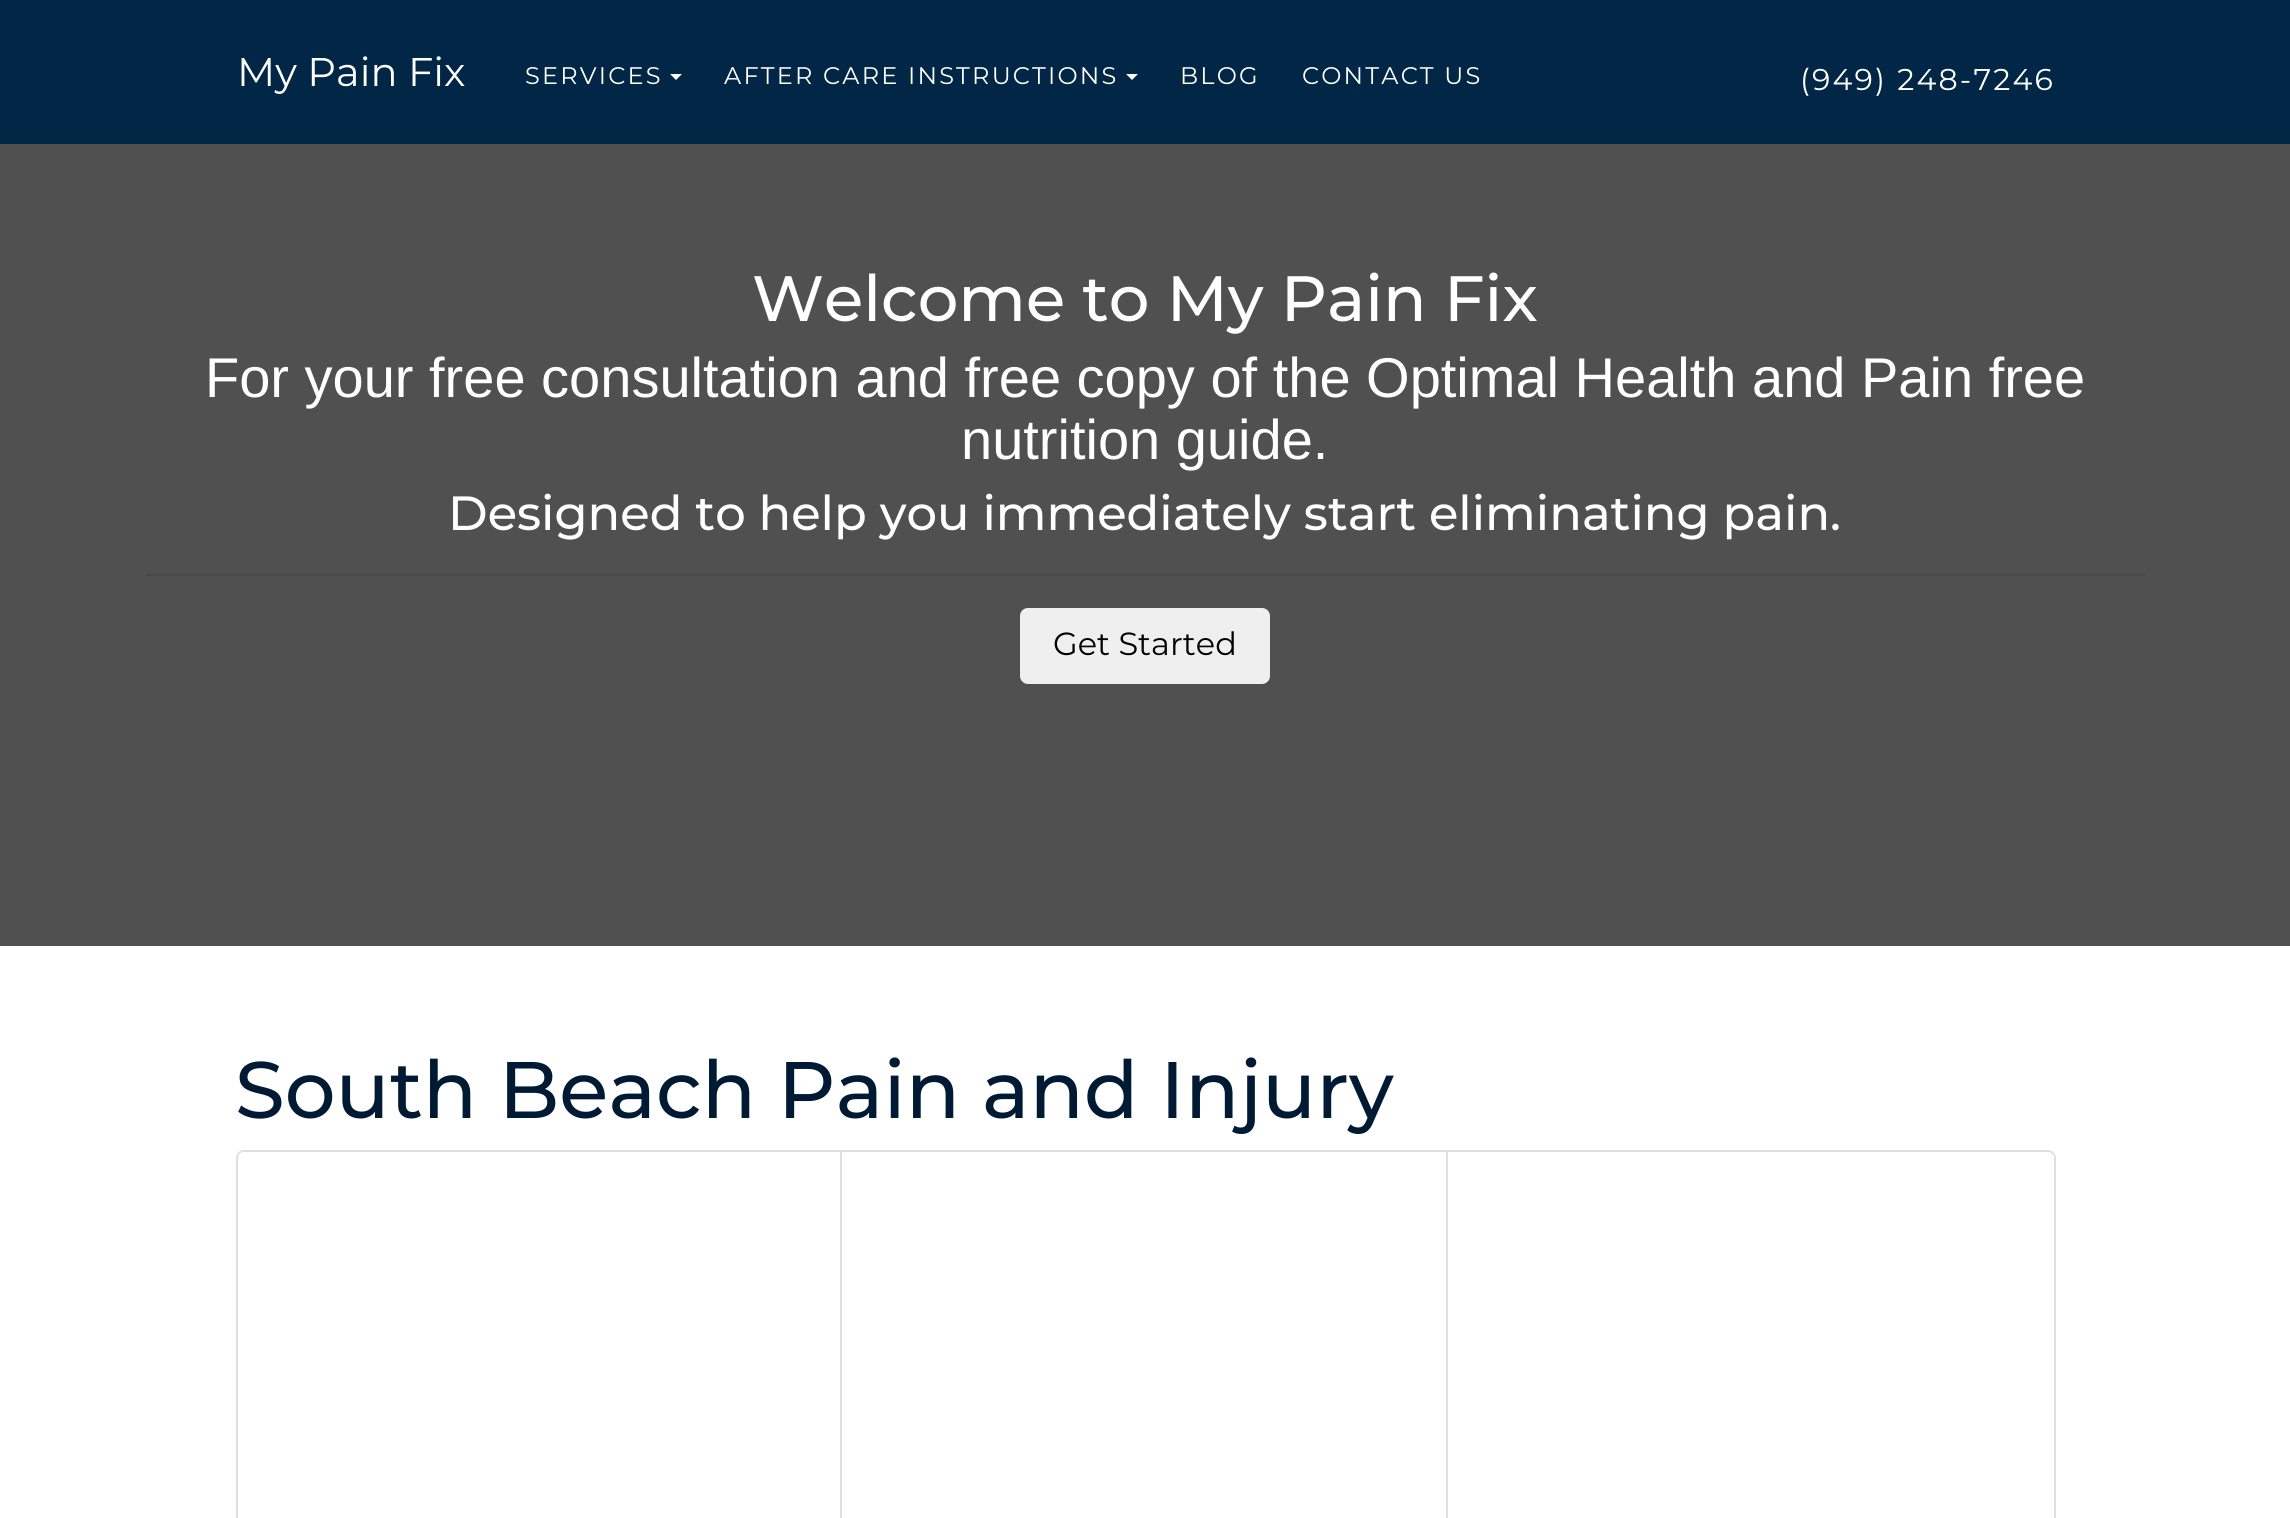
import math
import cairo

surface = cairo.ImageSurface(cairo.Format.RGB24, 2290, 1518)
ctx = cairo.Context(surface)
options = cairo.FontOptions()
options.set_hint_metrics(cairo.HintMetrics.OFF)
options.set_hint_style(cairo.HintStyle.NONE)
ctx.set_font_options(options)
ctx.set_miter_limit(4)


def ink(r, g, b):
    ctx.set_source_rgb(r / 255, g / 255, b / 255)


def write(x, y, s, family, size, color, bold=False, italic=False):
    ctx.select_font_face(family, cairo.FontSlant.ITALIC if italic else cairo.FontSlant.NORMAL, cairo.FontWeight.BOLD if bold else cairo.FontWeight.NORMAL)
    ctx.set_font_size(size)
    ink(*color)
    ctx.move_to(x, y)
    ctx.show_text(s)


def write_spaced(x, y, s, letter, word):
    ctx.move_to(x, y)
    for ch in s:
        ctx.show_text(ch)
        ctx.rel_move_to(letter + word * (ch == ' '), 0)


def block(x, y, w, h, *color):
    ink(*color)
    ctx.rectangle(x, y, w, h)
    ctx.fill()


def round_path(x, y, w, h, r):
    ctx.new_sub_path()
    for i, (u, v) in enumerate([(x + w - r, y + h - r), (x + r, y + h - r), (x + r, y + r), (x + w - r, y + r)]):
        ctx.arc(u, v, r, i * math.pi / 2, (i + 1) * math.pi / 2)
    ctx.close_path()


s1 = dict(family="Montserrat", size=40, color=(255, 255, 255))
s2 = dict(family="Montserrat Medium", size=64, color=(255, 255, 255))
s3 = dict(family="Liberation Sans", size=56, color=(255, 255, 255))
s4 = dict(family="Montserrat Medium", size=48, color=(255, 255, 255))
s5 = dict(family="Montserrat", size=32, color=(0, 0, 0))
s6 = dict(family="Montserrat Medium", size=80, color=(0, 26, 51))

ink(255, 255, 255)
ctx.paint()
block(0, 0, 2290, 144, 2, 38, 69)
write(237, 86, "My Pain Fix", **s1)
ctx.set_font_size(24)
write_spaced(525, 84, "SERVICES", 2.2, 0)
ctx.new_path()
ctx.move_to(670, 74)
ctx.line_to(682, 74)
ctx.line_to(676, 80)
ctx.close_path()
ctx.fill()
write_spaced(724, 84, "AFTER CARE INSTRUCTIONS", 2.2, 0)
ctx.new_path()
ctx.move_to(1126, 74)
ctx.line_to(1138, 74)
ctx.line_to(1132, 80)
ctx.close_path()
ctx.fill()
write_spaced(1180, 84, "BLOG", 2.2, 0)
write_spaced(1302, 84, "CONTACT US", 2.2, 0)
ctx.set_font_size(30)
write_spaced(1800, 90, "(949) 248-7246", 2.2, 0)
block(0, 144, 2290, 802, 80, 80, 80)
write(752, 321, "Welcome to My Pain Fix", **s2)
write(205, 397, "For your free consultation and free copy of the Optimal Health and Pain free", **s3)
write(961, 459, "nutrition guide.", **s3)
write(448, 530, "Designed to help you immediately start eliminating pain.", **s4)
block(146, 574, 2000, 2, 72, 72, 72)
ink(239, 239, 239)
round_path(1020, 608, 250, 76, 8)
ctx.fill()
write(1053, 655, "Get Started", **s5)
write(235, 1118, "South Beach Pain and Injury", **s6)
ctx.new_path()
ctx.move_to(244, 1151)
ctx.line_to(841, 1151)
ctx.line_to(841, 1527)
ctx.line_to(244, 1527)
ctx.curve_to(240, 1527, 237, 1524, 237, 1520)
ctx.line_to(237, 1158)
ctx.curve_to(237, 1154, 240, 1151, 244, 1151)
ctx.close_path()
ink(223, 223, 223)
ctx.stroke()
ctx.new_path()
ctx.move_to(842, 1150)
ctx.line_to(1448, 1150)
ctx.line_to(1446, 1152)
ctx.line_to(842, 1152)
ctx.close_path()
ctx.fill()
ctx.set_source_rgba(0, 0, 0, 0.12)
ctx.new_path()
ctx.move_to(1448, 1150)
ctx.line_to(1448, 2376)
ctx.line_to(1446, 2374)
ctx.line_to(1446, 1152)
ctx.close_path()
ctx.fill()
ink(223, 223, 223)
ctx.set_fill_rule(cairo.FillRule.EVEN_ODD)
ctx.new_path()
ctx.move_to(1448, 1150)
ctx.line_to(2048, 1150)
ctx.curve_to(2052, 1150, 2056, 1154, 2056, 1158)
ctx.line_to(2056, 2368)
ctx.curve_to(2056, 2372, 2052, 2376, 2048, 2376)
ctx.line_to(1448, 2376)
ctx.close_path()
ctx.move_to(1448, 1152)
ctx.line_to(2048, 1152)
ctx.curve_to(2051, 1152, 2054, 1155, 2054, 1158)
ctx.line_to(2054, 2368)
ctx.curve_to(2054, 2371, 2051, 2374, 2048, 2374)
ctx.line_to(1448, 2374)
ctx.close_path()
ctx.fill()
surface.write_to_png("screenshot.png")
